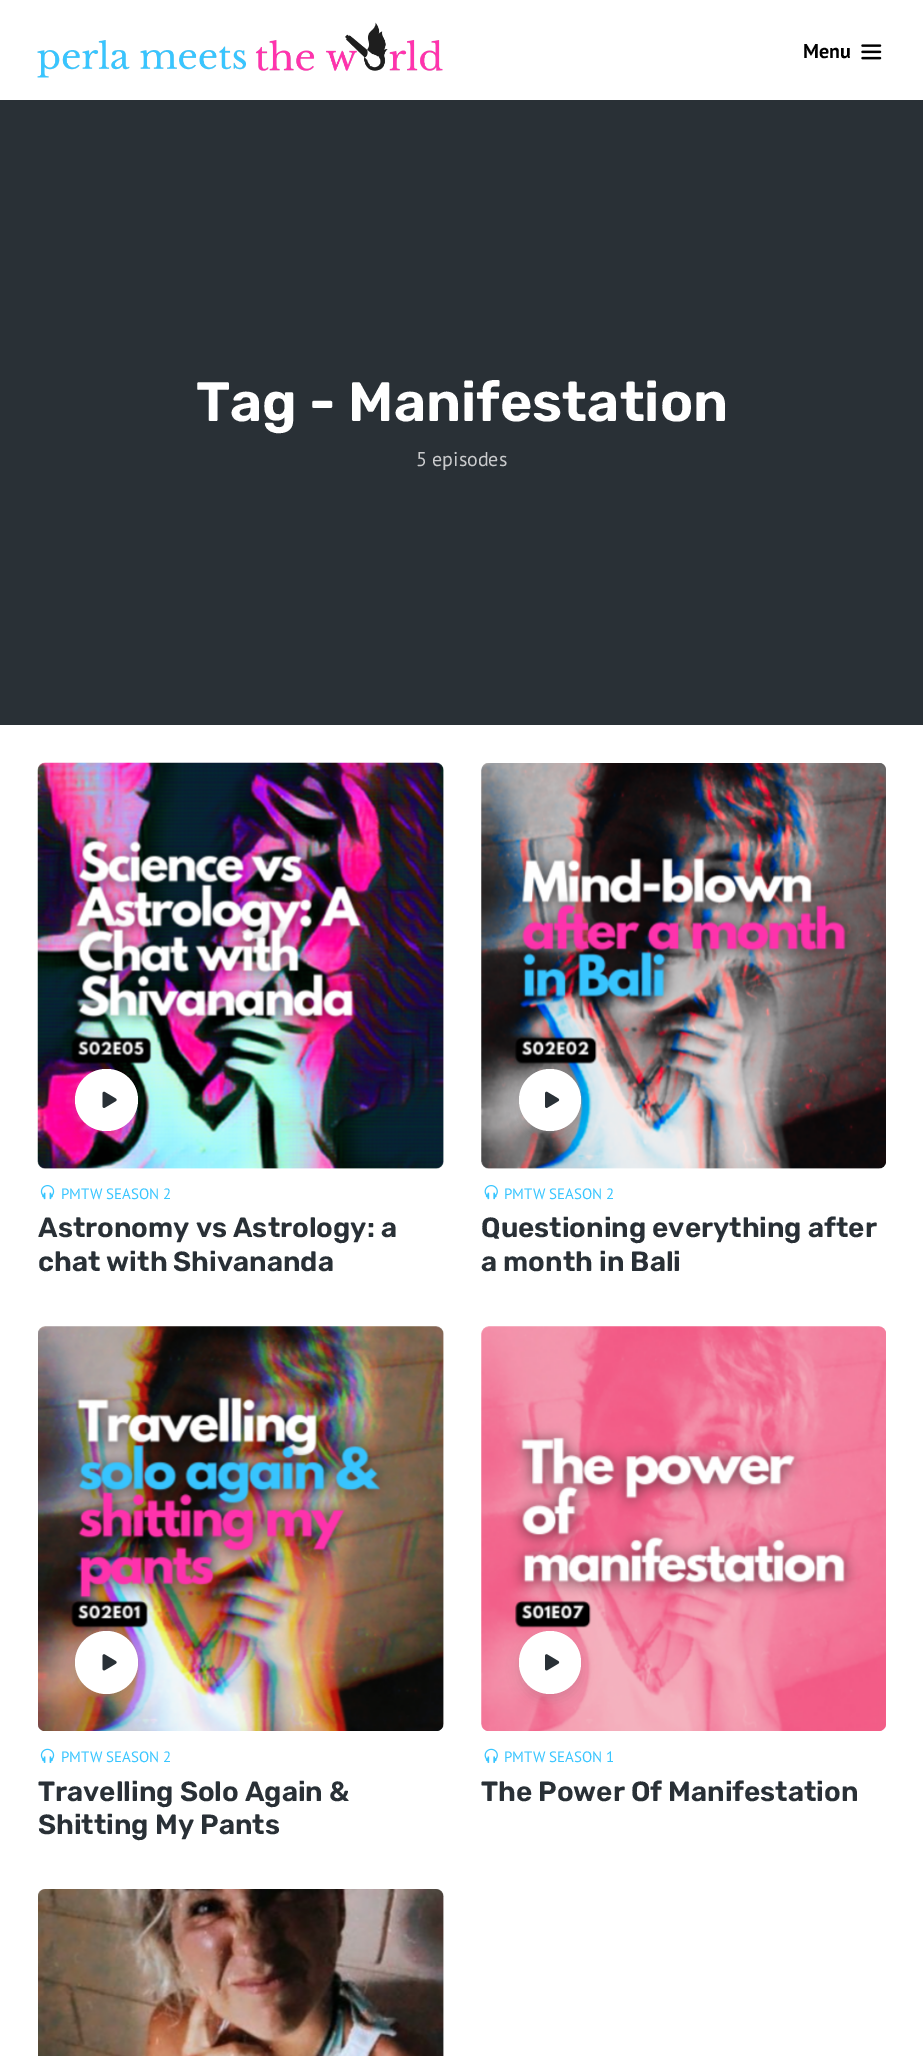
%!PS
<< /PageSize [923 2056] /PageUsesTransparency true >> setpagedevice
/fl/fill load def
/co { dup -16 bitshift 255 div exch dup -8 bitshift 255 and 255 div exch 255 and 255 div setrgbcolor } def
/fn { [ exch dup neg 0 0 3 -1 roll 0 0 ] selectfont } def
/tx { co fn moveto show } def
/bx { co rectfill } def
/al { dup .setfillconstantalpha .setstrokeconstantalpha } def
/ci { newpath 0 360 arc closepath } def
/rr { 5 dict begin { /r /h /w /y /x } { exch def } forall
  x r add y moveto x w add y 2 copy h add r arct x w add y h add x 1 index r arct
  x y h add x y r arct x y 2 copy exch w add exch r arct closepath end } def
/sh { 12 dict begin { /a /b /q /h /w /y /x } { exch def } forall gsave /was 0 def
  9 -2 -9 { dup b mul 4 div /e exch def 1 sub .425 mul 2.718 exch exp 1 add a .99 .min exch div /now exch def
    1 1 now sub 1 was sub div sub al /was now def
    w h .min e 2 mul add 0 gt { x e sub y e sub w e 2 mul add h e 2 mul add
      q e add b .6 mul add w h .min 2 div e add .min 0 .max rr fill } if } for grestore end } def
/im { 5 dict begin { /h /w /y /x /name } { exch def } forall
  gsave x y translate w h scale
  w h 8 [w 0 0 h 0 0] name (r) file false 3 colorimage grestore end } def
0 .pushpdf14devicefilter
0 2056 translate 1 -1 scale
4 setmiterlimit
0 0 923 2056 16#FFFFFF bx
(media/1.raw) 37 22 406 56 im
(media/2.raw) 861 44 21 16 im
0 100 923 625 16#293036 bx
(media/3.raw) 37 762 407 407 im
16#000000 co
75 1075 63 63 31.5 6 .1 sh
16#FFFFFF co
75 1069 63 62 31 rr fl
(media/4.raw) 102 1091 15 17 im
(media/5.raw) 40 1185 15 15 im
(media/6.raw) 481 763 405 406 im
16#000000 co
519 1075 62 63 31 6 .1 sh
16#FFFFFF co
550 1100 31 ci fl
(media/7.raw) 545 1091 15 17 im
(media/8.raw) 484 1185 14 15 im
(media/9.raw) 38 1326 406 405 im
16#000000 co
75 1638 63 62 31 6 .1 sh
16#FFFFFF co
106.5 1662.5 31.5 ci fl
(media/10.raw) 102 1654 15 17 im
(media/11.raw) 40 1748 15 15 im
(media/12.raw) 481 1326 405 405 im
16#000000 co
519 1638 62 62 31 6 .1 sh
16#FFFFFF co
519 1631 62 63 31 rr fl
(media/13.raw) 545 1654 15 17 im
(media/14.raw) 484 1748 14 15 im
(media/15.raw) 38 1889 406 167 im
(Menu) 803 58 /PTSans-Bold 20 16#000000 tx
(Tag - Manifestation) 196 421 /Rubik-SemiBold 55.5 16#FFFFFF tx
(5 episodes) 416 466 /PTSans-Regular 20 16#CACBCD tx
(PMTW SEASON 2) 61 1199 /PTSans-Regular 15 16#38C5FF tx
(Astronomy vs Astrology: a) 38 1237 /Rubik-SemiBold 27.75 16#293036 tx
(chat with Shivananda) 38 1271 /Rubik-SemiBold 27.75 16#293036 tx
(PMTW SEASON 2) 504 1199 /PTSans-Regular 15 16#38C5FF tx
(Questioning everything after) 481 1237 /Rubik-SemiBold 27.75 16#293036 tx
(a month in Bali) 481 1271 /Rubik-SemiBold 27.75 16#293036 tx
(PMTW SEASON 2) 61 1762 /PTSans-Regular 15 16#38C5FF tx
(Travelling Solo Again &) 38 1801 /Rubik-SemiBold 27.75 16#293036 tx
(Shitting My Pants) 38 1834 /Rubik-SemiBold 27.75 16#293036 tx
(PMTW SEASON 1) 504 1762 /PTSans-Regular 15 16#38C5FF tx
(The Power Of Manifestation) 481 1801 /Rubik-SemiBold 27.75 16#293036 tx
.poppdf14devicefilter showpage
